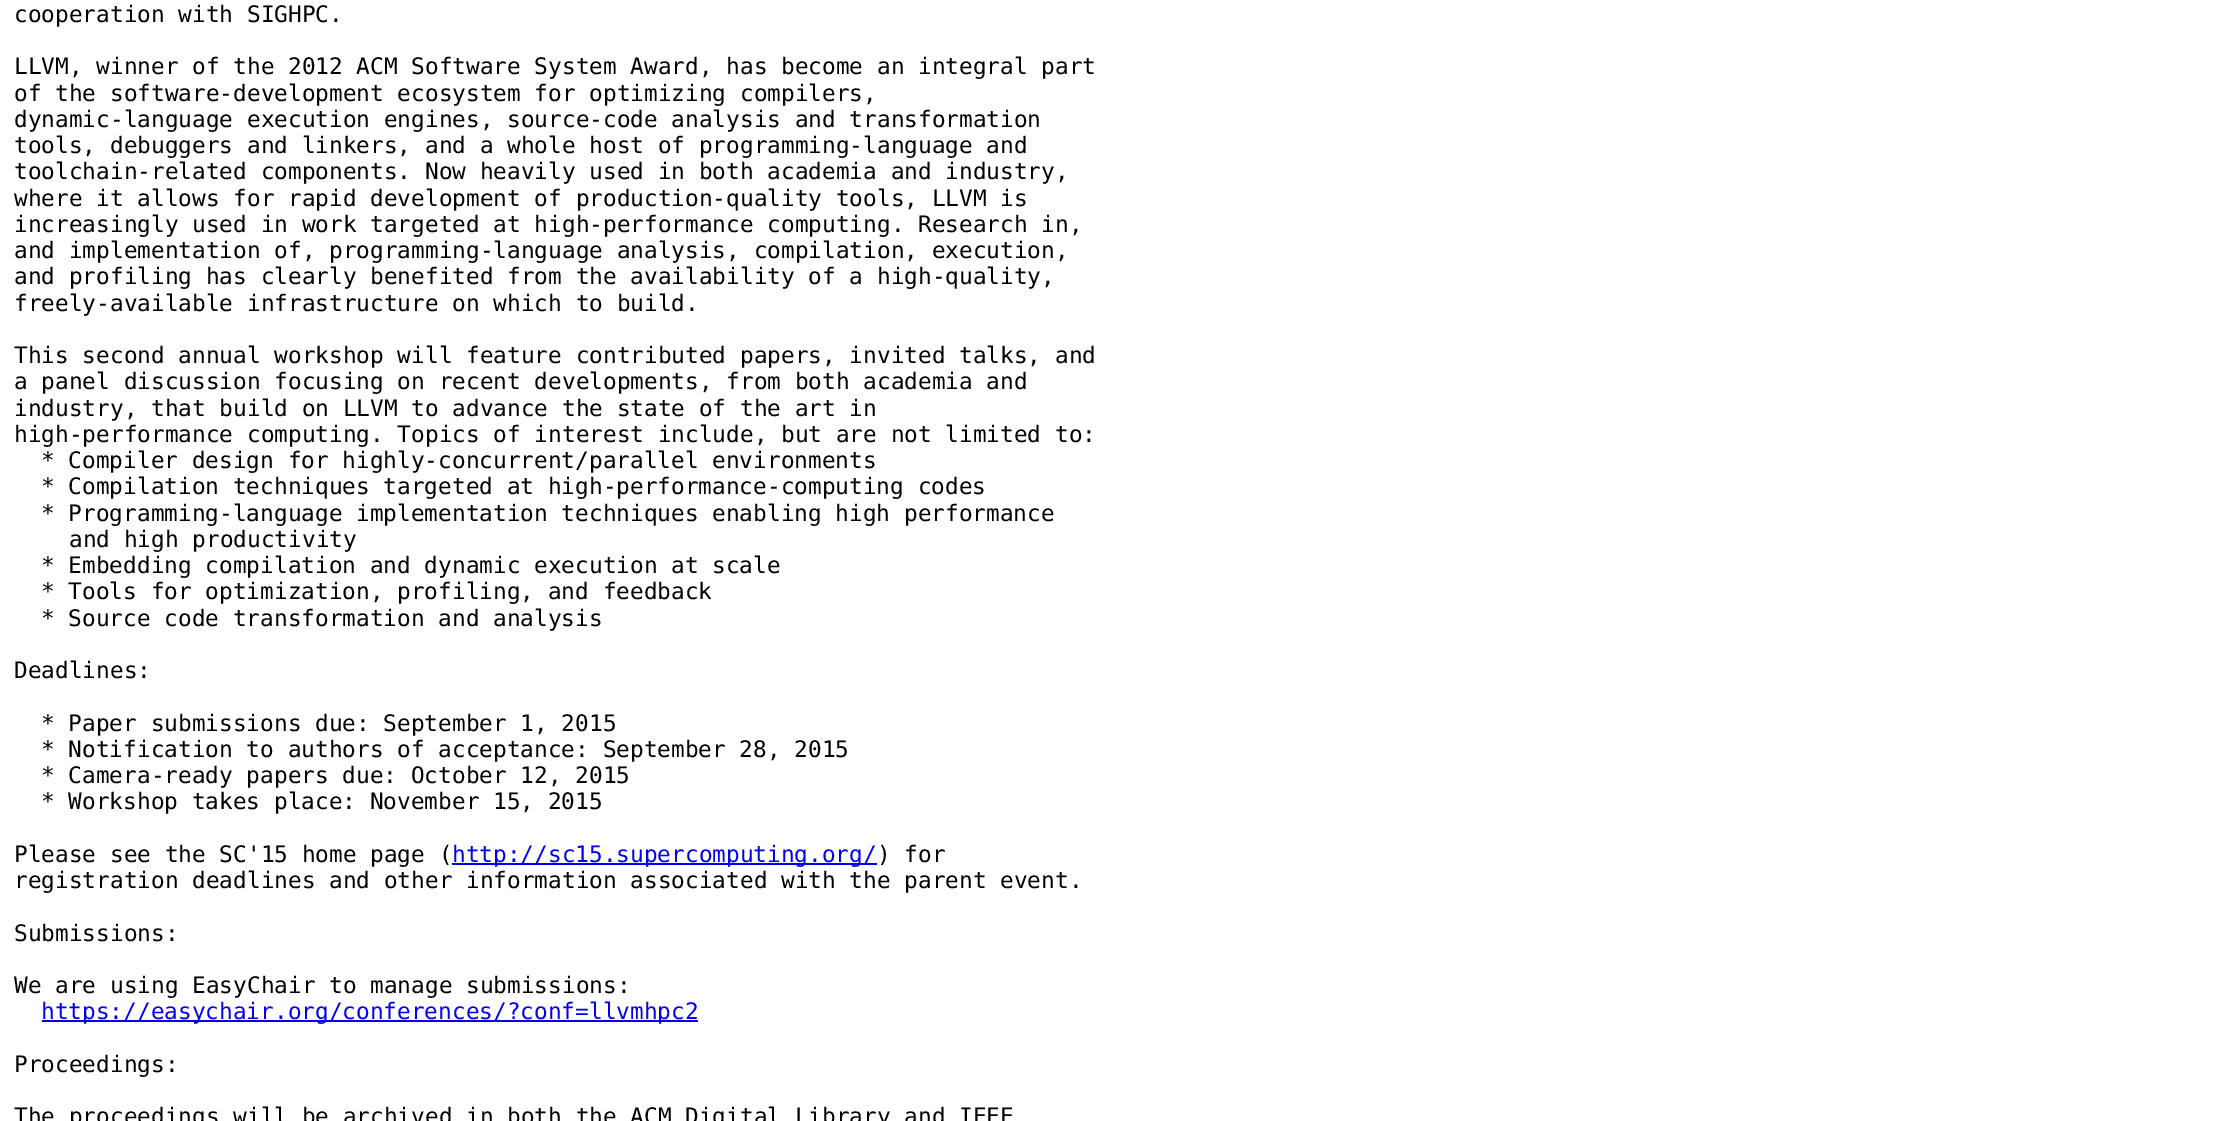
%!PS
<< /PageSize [2238 1121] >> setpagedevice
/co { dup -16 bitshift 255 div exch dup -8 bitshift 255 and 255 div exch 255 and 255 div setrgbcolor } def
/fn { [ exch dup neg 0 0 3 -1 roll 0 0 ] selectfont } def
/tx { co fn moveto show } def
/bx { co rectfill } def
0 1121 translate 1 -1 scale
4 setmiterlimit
0 0 2238 1121 16#FFFFFF bx
452 863 425 2 16#0000EE bx
42 1020 656 2 16#0000EE bx
(cooperation with SIGHPC.) 14 22 /DejaVuSansMono-Regular 22.75 16#000000 tx
(LLVM, winner of the 2012 ACM Software System Award, has become an integral part) 14 74 /DejaVuSansMono-Regular 22.75 16#000000 tx
(of the software-development ecosystem for optimizing compilers,) 14 101 /DejaVuSansMono-Regular 22.75 16#000000 tx
(dynamic-language execution engines, source-code analysis and transformation) 14 127 /DejaVuSansMono-Regular 22.75 16#000000 tx
(tools, debuggers and linkers, and a whole host of programming-language and) 14 153 /DejaVuSansMono-Regular 22.75 16#000000 tx
(toolchain-related components. Now heavily used in both academia and industry,) 14 179 /DejaVuSansMono-Regular 22.75 16#000000 tx
(where it allows for rapid development of production-quality tools, LLVM is) 14 206 /DejaVuSansMono-Regular 22.75 16#000000 tx
(increasingly used in work targeted at high-performance computing. Research in,) 14 232 /DejaVuSansMono-Regular 22.75 16#000000 tx
(and implementation of, programming-language analysis, compilation, execution,) 14 258 /DejaVuSansMono-Regular 22.75 16#000000 tx
(and profiling has clearly benefited from the availability of a high-quality,) 14 284 /DejaVuSansMono-Regular 22.75 16#000000 tx
(freely-available infrastructure on which to build.) 14 311 /DejaVuSansMono-Regular 22.75 16#000000 tx
(This second annual workshop will feature contributed papers, invited talks, and) 14 363 /DejaVuSansMono-Regular 22.75 16#000000 tx
(a panel discussion focusing on recent developments, from both academia and) 14 389 /DejaVuSansMono-Regular 22.75 16#000000 tx
(industry, that build on LLVM to advance the state of the art in) 14 416 /DejaVuSansMono-Regular 22.75 16#000000 tx
(high-performance computing. Topics of interest include, but are not limited to:) 14 442 /DejaVuSansMono-Regular 22.75 16#000000 tx
(* Compiler design for highly-concurrent/parallel environments) 41 468 /DejaVuSansMono-Regular 22.75 16#000000 tx
(* Compilation techniques targeted at high-performance-computing codes) 41 494 /DejaVuSansMono-Regular 22.75 16#000000 tx
(* Programming-language implementation techniques enabling high performance) 41 521 /DejaVuSansMono-Regular 22.75 16#000000 tx
(and high productivity) 69 547 /DejaVuSansMono-Regular 22.75 16#000000 tx
(* Embedding compilation and dynamic execution at scale) 41 573 /DejaVuSansMono-Regular 22.75 16#000000 tx
(* Tools for optimization, profiling, and feedback) 41 599 /DejaVuSansMono-Regular 22.75 16#000000 tx
(* Source code transformation and analysis) 41 626 /DejaVuSansMono-Regular 22.75 16#000000 tx
(Deadlines:) 14 678 /DejaVuSansMono-Regular 22.75 16#000000 tx
(* Paper submissions due: September 1, 2015) 41 731 /DejaVuSansMono-Regular 22.75 16#000000 tx
(* Notification to authors of acceptance: September 28, 2015) 41 757 /DejaVuSansMono-Regular 22.75 16#000000 tx
(* Camera-ready papers due: October 12, 2015) 41 783 /DejaVuSansMono-Regular 22.75 16#000000 tx
(* Workshop takes place: November 15, 2015) 41 809 /DejaVuSansMono-Regular 22.75 16#000000 tx
(Please see the SC'15 home page \() 14 862 /DejaVuSansMono-Regular 22.75 16#000000 tx
(http://sc15.supercomputing.org/) 452 862 /DejaVuSansMono-Regular 22.75 16#0000EE tx
(\) for) 877 862 /DejaVuSansMono-Regular 22.75 16#000000 tx
(registration deadlines and other information associated with the parent event.) 14 888 /DejaVuSansMono-Regular 22.75 16#000000 tx
(Submissions:) 14 941 /DejaVuSansMono-Regular 22.75 16#000000 tx
(We are using EasyChair to manage submissions:) 14 993 /DejaVuSansMono-Regular 22.75 16#000000 tx
(https://easychair.org/conferences/?conf=llvmhpc2) 41 1019 /DejaVuSansMono-Regular 22.75 16#0000EE tx
(Proceedings:) 14 1072 /DejaVuSansMono-Regular 22.75 16#000000 tx
(The proceedings will be archived in both the ACM Digital Library and IEEE) 14 1124 /DejaVuSansMono-Regular 22.75 16#000000 tx
showpage
